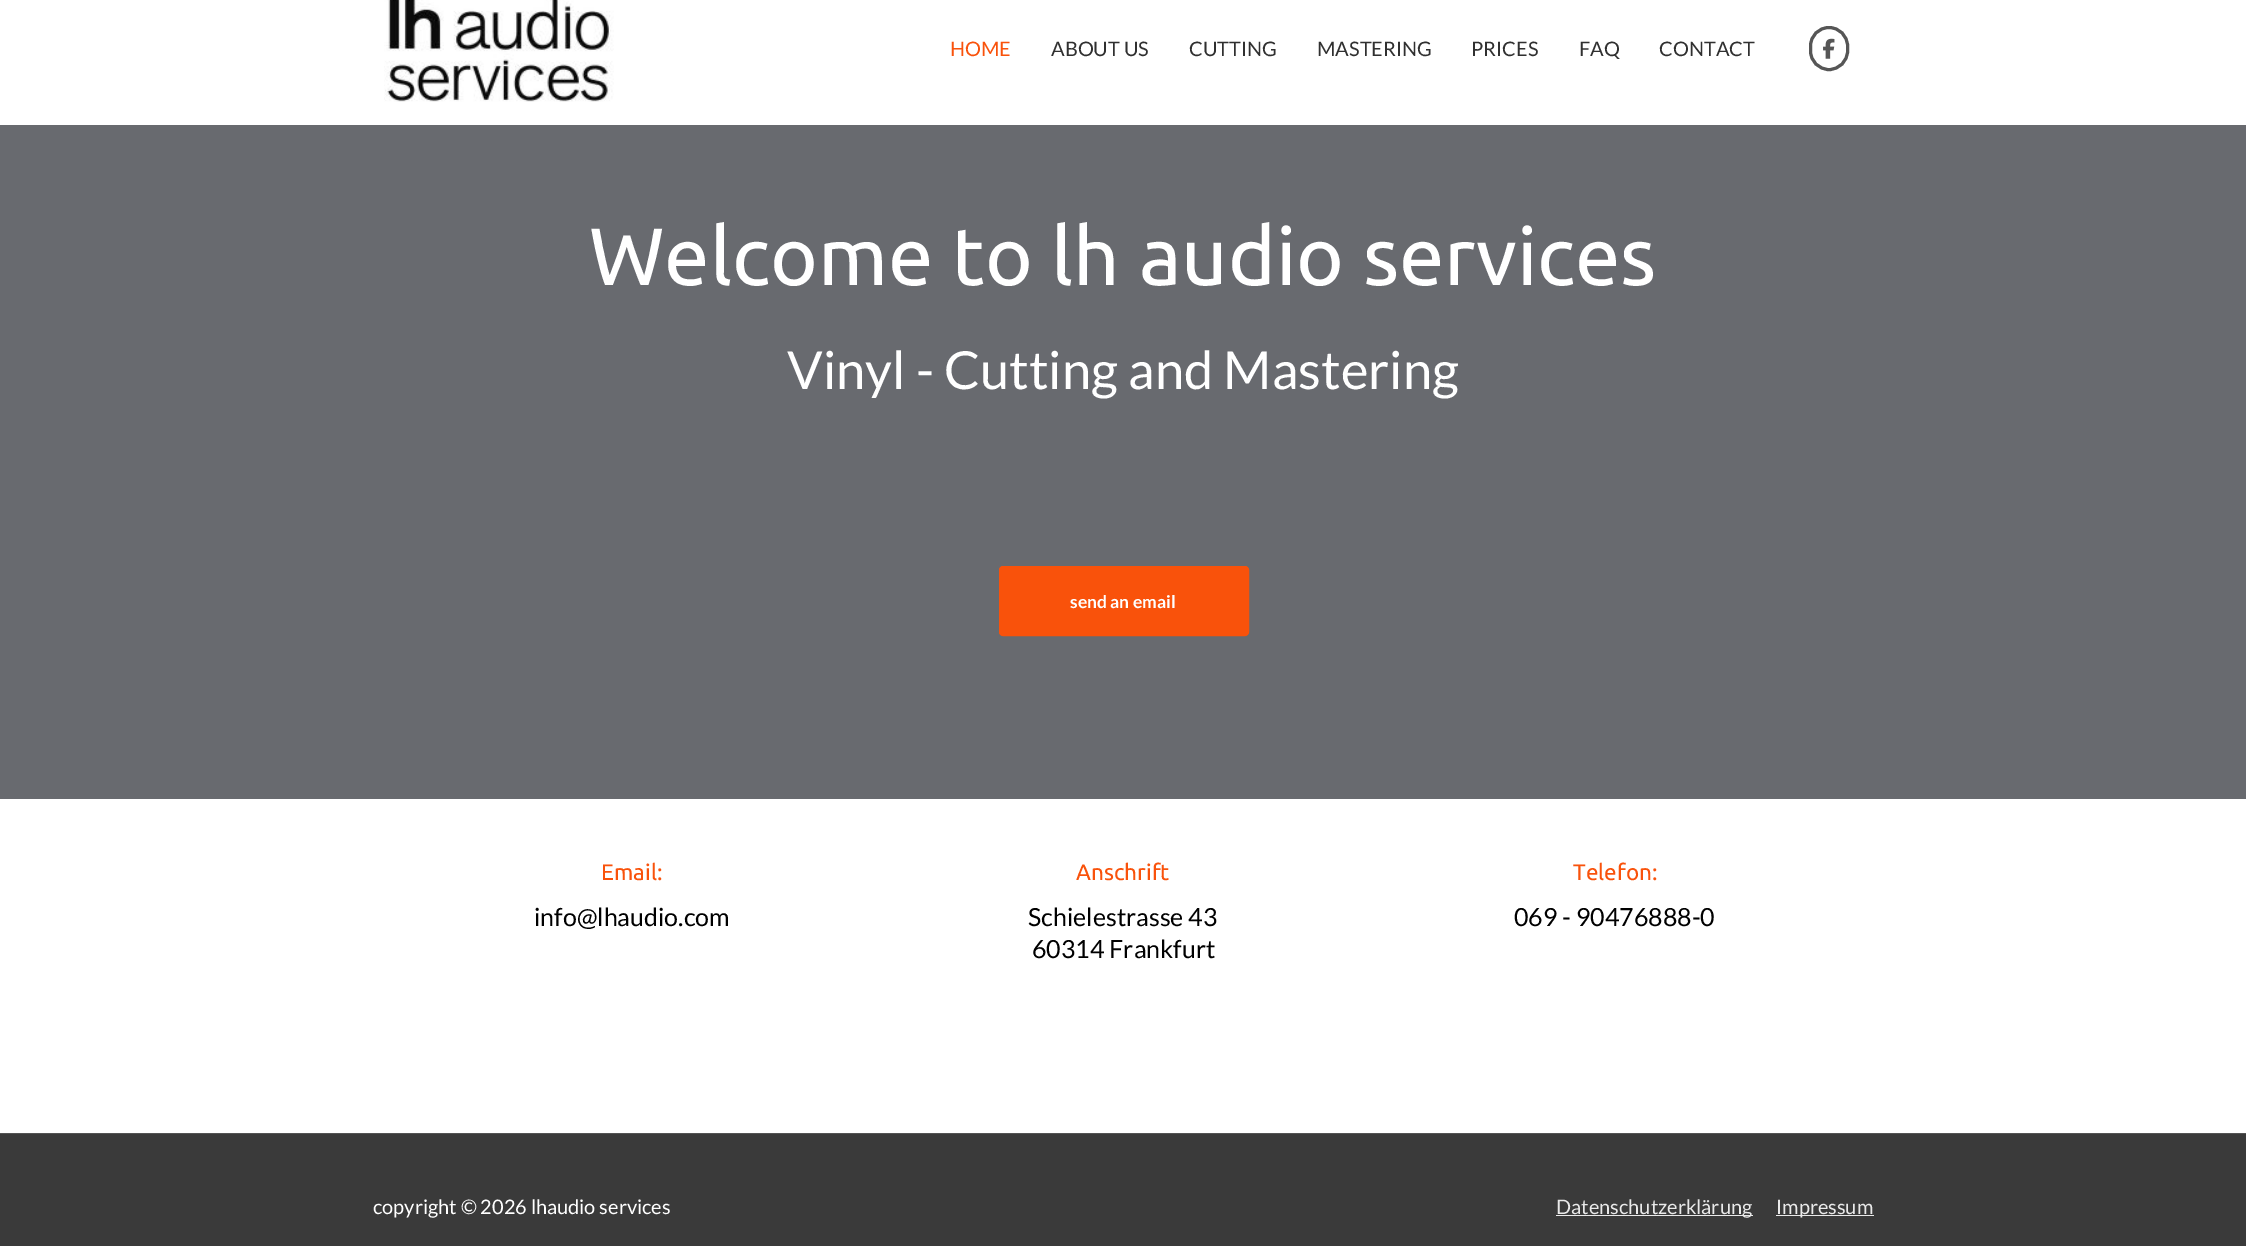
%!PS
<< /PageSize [2246 1246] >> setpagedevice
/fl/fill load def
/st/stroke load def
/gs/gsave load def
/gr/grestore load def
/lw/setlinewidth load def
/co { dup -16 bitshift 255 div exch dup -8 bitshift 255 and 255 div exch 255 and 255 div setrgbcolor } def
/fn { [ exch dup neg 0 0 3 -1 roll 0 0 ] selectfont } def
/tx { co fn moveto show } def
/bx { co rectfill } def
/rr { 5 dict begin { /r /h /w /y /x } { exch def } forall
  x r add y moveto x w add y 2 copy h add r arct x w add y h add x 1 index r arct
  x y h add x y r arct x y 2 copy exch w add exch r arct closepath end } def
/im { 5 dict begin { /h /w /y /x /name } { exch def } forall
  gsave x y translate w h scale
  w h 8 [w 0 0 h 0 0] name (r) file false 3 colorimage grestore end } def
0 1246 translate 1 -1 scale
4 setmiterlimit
0 0 2246 1246 16#FFFFFF bx
(media/1.raw) 384 0 230 102 im
16#565656 co
3 lw
1810.5 27.5 37 42 18.5 rr st
(media/2.raw) 1823 38 12 21 im
0 125 2246 674 16#686A6F bx
16#F9520B co
999.5 566.5 249 69 3.5 rr gs fl gr
1 lw
st
0 1133 2246 1 16#545454 bx
0 1134 2246 112 16#3A3A3A bx
1556 1215 197 1 16#EAEAEA bx
1776 1215 98 1 16#EAEAEA bx
(HOME) 950 56 /Lato-Regular 20 16#F9520B tx
(ABOUT US) 1051 56 /Lato-Regular 20 16#303030 tx
(CUTTING) 1189 56 /Lato-Regular 20 16#303030 tx
(MASTERING) 1317 56 /Lato-Regular 20 16#303030 tx
(PRICES) 1471 56 /Lato-Regular 20 16#303030 tx
(FAQ) 1579 56 /Lato-Regular 20 16#303030 tx
(CONTACT) 1659 56 /Lato-Regular 20 16#303030 tx
(Welcome to lh audio services) 589 285 /Ubuntu-Regular 81.25 16#FFFFFF tx
(Vinyl - Cutting and Mastering) 787 389 /Lato-Regular 52.5 16#FFFFFF tx
(send an email) 1070 608 /Lato-Bold 17.5 16#FFFFFF tx
(Email:) 601 880 /Ubuntu-Regular 22.5 16#F9520B tx
(info@lhaudio.com) 534 926 /Lato-Regular 25 16#000000 tx
(Anschrift) 1076 880 /Ubuntu-Regular 22.5 16#F9520B tx
(Schielestrasse 43) 1028 926 /Lato-Regular 25 16#000000 tx
(60314 Frankfurt) 1032 958 /Lato-Regular 25 16#000000 tx
(Telefon:) 1573 880 /Ubuntu-Regular 22.5 16#F9520B tx
(069 - 90476888-0) 1514 926 /Lato-Regular 25 16#000000 tx
(copyright © 2026 lhaudio services) 373 1214 /Lato-Regular 20 16#FFFFFF tx
(Datenschutzerklärung) 1556 1214 /Lato-Regular 20 16#EAEAEA tx
(Impressum) 1776 1214 /Lato-Regular 20 16#EAEAEA tx
showpage
